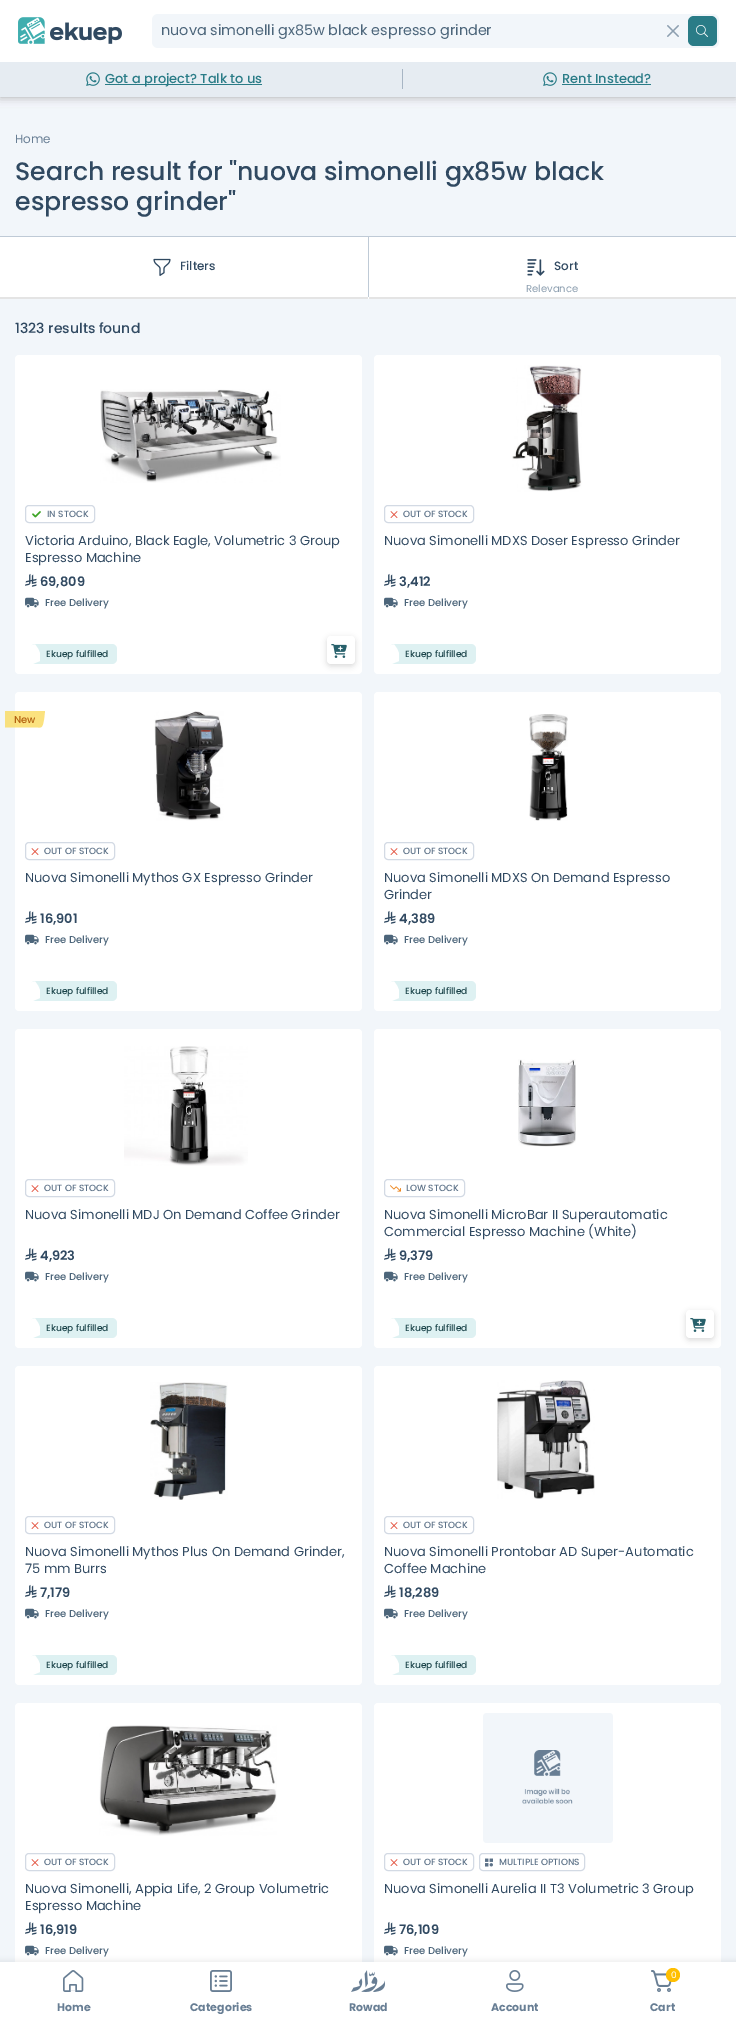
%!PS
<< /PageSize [736 2022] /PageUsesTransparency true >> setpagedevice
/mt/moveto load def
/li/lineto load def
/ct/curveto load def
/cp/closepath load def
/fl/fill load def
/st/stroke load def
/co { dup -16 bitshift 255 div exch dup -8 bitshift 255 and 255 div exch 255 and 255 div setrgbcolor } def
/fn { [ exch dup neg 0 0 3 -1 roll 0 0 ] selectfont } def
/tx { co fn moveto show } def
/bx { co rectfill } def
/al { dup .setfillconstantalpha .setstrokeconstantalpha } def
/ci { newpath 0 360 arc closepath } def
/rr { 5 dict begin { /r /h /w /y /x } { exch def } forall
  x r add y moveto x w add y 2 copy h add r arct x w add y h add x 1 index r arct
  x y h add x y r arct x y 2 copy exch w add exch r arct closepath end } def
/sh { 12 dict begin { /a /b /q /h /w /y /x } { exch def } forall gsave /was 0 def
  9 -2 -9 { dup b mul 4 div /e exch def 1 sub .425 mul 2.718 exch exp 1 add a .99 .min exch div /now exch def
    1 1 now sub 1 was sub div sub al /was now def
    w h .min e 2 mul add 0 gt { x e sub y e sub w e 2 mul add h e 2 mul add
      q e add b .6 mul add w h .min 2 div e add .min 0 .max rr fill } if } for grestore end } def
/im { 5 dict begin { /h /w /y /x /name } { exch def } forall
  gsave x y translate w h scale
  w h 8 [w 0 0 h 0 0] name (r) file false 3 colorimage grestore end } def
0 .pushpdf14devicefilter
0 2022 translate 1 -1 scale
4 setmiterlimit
0 0 736 2022 16#F4F7FD bx
0 107 736 129 16#F2F6FA bx
16#A7A7A7 co
0 0 736 97 0 5 1 sh
0 0 736 62 16#FFFFFF bx
(media/1.raw) 18 17 104 27 im
16#F2F6FA co
152 14 567 34 6 rr fl
(media/2.raw) 667 25 12 12 im
16#2A7C87 co
688 16 29 30 6 rr fl
(media/3.raw) 696 25 12 12 im
0 62 736 35 16#E6ECF2 bx
(media/4.raw) 86 72 14 14 im
105 84 157 1 16#2A7C87 bx
402 69 1 20 16#A7B5C4 bx
(media/4.raw) 543 72 14 14 im
562 84 89 1 16#2A7C87 bx
0 299 736 1663 16#F2F6FA bx
16#FFFFFF co
15 1703 347 319 4 rr fl
(media/15.raw) 25 1945 14 11 im
374 1703 347 319 4 rr fl
(media/15.raw) 384 1945 14 11 im
16#A7A7A7 co
-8 1960 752 60 0 2.5 .19 sh
0 1962 736 60 16#FFFFFF bx
(media/5.raw) 63 1970 21 22 im
(media/6.raw) 210 1970 22 22 im
(media/7.raw) 351 1970 34 22 im
(media/8.raw) 506 1970 18 22 im
(media/9.raw) 651 1970 21 22 im
16#FFBF02 co
673 1975 7 ci fl
0 237 736 62 16#FFFFFF bx
0 236 736 1 16#BFCAD6 bx
368 237 1 60 16#BFCAD6 bx
0 297 368 2 16#E4E4E4 bx
(media/10.raw) 153 258 18 18 im
369 297 367 2 16#E4E4E4 bx
(media/11.raw) 527 259 18 17 im
16#FFFFFF co
15 355 347 319 4 rr fl
(media/12.raw) 100 389 181 94 im
16#D3DAE4 co
25.5 505.5 69 17 3.5 rr st
(media/13.raw) 32 511 9 7 im
(media/14.raw) 25 573 12 14 im
(media/15.raw) 25 597 14 11 im
16#DEF1F2 co
30 644 87 20 5 rr fl
(media/16.raw) 30 644 10 20 im
16#000000 co
327 638 28 28 4 3 .15 sh
16#FFFFFF co
327 636 28 28 4 rr fl
(media/17.raw) 331 644 16 14 im
374 355 347 319 4 rr fl
(media/18.raw) 512 365 70 127 im
16#D3DAE4 co
384.5 505.5 89 17 3.5 rr st
(media/19.raw) 390 511 8 7 im
(media/14.raw) 384 573 12 14 im
(media/15.raw) 384 597 14 11 im
16#DEF1F2 co
389 644 87 20 5 rr fl
(media/16.raw) 389 644 10 20 im
16#FFFFFF co
15 692 347 319 4 rr fl
0.8 al
16#FADB5F co
5 711 mt 45 711 li 44.5 715.5 li 43 728.5 41.5 727.5 38 727.5 ct 5 727.5 li cp fl
1 al
(media/20.raw) 154 711 70 110 im
16#D3DAE4 co
25.5 842.5 89 17 3.5 rr st
(media/19.raw) 31 848 8 7 im
(media/14.raw) 25 910 12 14 im
(media/15.raw) 25 934 14 11 im
16#DEF1F2 co
30 981 87 20 5 rr fl
(media/16.raw) 30 981 10 20 im
16#FFFFFF co
374 692 347 319 4 rr fl
(media/21.raw) 529 714 39 107 im
16#D3DAE4 co
384.5 842.5 89 17 3.5 rr st
(media/19.raw) 390 848 8 7 im
(media/14.raw) 384 910 12 14 im
(media/15.raw) 384 934 14 11 im
16#DEF1F2 co
389 981 87 20 5 rr fl
(media/16.raw) 389 981 10 20 im
16#FFFFFF co
15 1029 347 319 4 rr fl
(media/22.raw) 124 1046 124 120 im
16#D3DAE4 co
25.5 1179.5 89 17 3.5 rr st
(media/19.raw) 31 1185 8 7 im
(media/14.raw) 25 1247 12 14 im
(media/15.raw) 25 1271 14 11 im
16#DEF1F2 co
30 1318 87 20 5 rr fl
(media/16.raw) 30 1318 10 20 im
16#FFFFFF co
374 1029 347 319 4 rr fl
(media/23.raw) 518 1059 58 88 im
16#D3DAE4 co
384.5 1179.5 80 17 3.5 rr st
(media/24.raw) 390 1185 11 7 im
(media/14.raw) 384 1247 12 14 im
(media/15.raw) 384 1271 14 11 im
16#DEF1F2 co
389 1318 87 20 5 rr fl
(media/16.raw) 389 1318 10 20 im
16#000000 co
686 1312 28 28 4 3 .15 sh
16#FFFFFF co
686 1310 28 28 4 rr fl
(media/17.raw) 690 1318 16 14 im
15 1366 347 319 4 rr fl
(media/25.raw) 150 1382 78 118 im
16#D3DAE4 co
25.5 1516.5 89 17 3.5 rr st
(media/19.raw) 31 1522 8 7 im
(media/14.raw) 25 1584 12 14 im
(media/15.raw) 25 1608 14 11 im
16#DEF1F2 co
30 1655 87 20 5 rr fl
(media/16.raw) 30 1655 10 20 im
16#FFFFFF co
374 1366 347 319 4 rr fl
(media/26.raw) 497 1380 98 119 im
16#D3DAE4 co
384.5 1516.5 89 17 3.5 rr st
(media/19.raw) 390 1522 8 7 im
(media/14.raw) 384 1584 12 14 im
(media/15.raw) 384 1608 14 11 im
16#DEF1F2 co
389 1655 87 20 5 rr fl
(media/16.raw) 389 1655 10 20 im
(media/27.raw) 99 1725 178 111 im
16#D3DAE4 co
25.5 1853.5 89 17 3.5 rr st
(media/19.raw) 31 1859 8 7 im
(media/14.raw) 25 1921 12 14 im
(media/28.raw) 483 1713 130 130 im
384.5 1853.5 89 17 3.5 rr st
(media/19.raw) 390 1859 8 7 im
479.5 1853.5 105 17 3.5 rr st
(media/29.raw) 485 1858 8 9 im
(media/14.raw) 384 1921 12 14 im
(nuova simonelli gx85w black espresso grinder) 161 35 /Poppins-Regular 14.4 16#4C657A tx
(Got a project? Talk to us) 105 83 /Poppins-Medium 13 16#2A7C87 tx
(Rent Instead?) 562 83 /Poppins-Medium 13 16#2A7C87 tx
(Home) 57 2011 /Poppins-Bold 11 16#687E94 tx
(Categories) 190 2011 /Poppins-Bold 11 16#687E94 tx
(Rowad) 349 2011 /Poppins-Bold 11 16#687E94 tx
(Account) 491 2011 /Poppins-Bold 11 16#687E94 tx
(0) 671 1978 /Poppins-Regular 9 16#FFFFFF tx
(Cart) 650 2011 /Poppins-Bold 11 16#687E94 tx
(Home) 15 143 /Poppins-Regular 12 16#687E94 tx
(Search result for "nuova simonelli gx85w black) 15 180 /Poppins-Medium 25.2 16#304961 tx
(espresso grinder") 15 210 /Poppins-Medium 25.2 16#304961 tx
(Filters) 180 270 /Poppins-Medium 12 16#304961 tx
(Sort) 554 270 /Poppins-Medium 12 16#304961 tx
(Relevance) 526 292 /Poppins-Regular 10 16#8D9FB0 tx
(1323 results found) 15 333 /Poppins-Medium 14 16#304961 tx
(IN STOCK) 47 517 /Poppins-Medium 9 16#5D7288 tx
(Victoria Arduino, Black Eagle, Volumetric 3 Group) 25 545 /Poppins-Regular 13 16#304961 tx
(Espresso Machine) 25 562 /Poppins-Regular 13 16#304961 tx
(69,809) 40 586 /Poppins-SemiBold 13 16#304961 tx
(Free Delivery) 45 606 /Poppins-Medium 10 16#4C657A tx
(Ekuep fulfilled) 46 657 /Poppins-Medium 9 16#1B444A tx
(OUT OF STOCK) 403 517 /Poppins-Medium 9 16#5D7288 tx
(Nuova Simonelli MDXS Doser Espresso Grinder) 384 545 /Poppins-Regular 13 16#304961 tx
(3,412) 399 586 /Poppins-SemiBold 13 16#304961 tx
(Free Delivery) 404 606 /Poppins-Medium 10 16#4C657A tx
(Ekuep fulfilled) 405 657 /Poppins-Medium 9 16#1B444A tx
(New) 14 723 /Poppins-Medium 10 16#B46312 tx
(OUT OF STOCK) 44 854 /Poppins-Medium 9 16#5D7288 tx
(Nuova Simonelli Mythos GX Espresso Grinder) 25 882 /Poppins-Regular 13 16#304961 tx
(16,901) 40 923 /Poppins-SemiBold 13 16#304961 tx
(Free Delivery) 45 943 /Poppins-Medium 10 16#4C657A tx
(Ekuep fulfilled) 46 994 /Poppins-Medium 9 16#1B444A tx
(OUT OF STOCK) 403 854 /Poppins-Medium 9 16#5D7288 tx
(Nuova Simonelli MDXS On Demand Espresso) 384 882 /Poppins-Regular 13 16#304961 tx
(Grinder) 384 899 /Poppins-Regular 13 16#304961 tx
(4,389) 399 923 /Poppins-SemiBold 13 16#304961 tx
(Free Delivery) 404 943 /Poppins-Medium 10 16#4C657A tx
(Ekuep fulfilled) 405 994 /Poppins-Medium 9 16#1B444A tx
(OUT OF STOCK) 44 1191 /Poppins-Medium 9 16#5D7288 tx
(Nuova Simonelli MDJ On Demand Coffee Grinder) 25 1219 /Poppins-Regular 13 16#304961 tx
(4,923) 40 1260 /Poppins-SemiBold 13 16#304961 tx
(Free Delivery) 45 1280 /Poppins-Medium 10 16#4C657A tx
(Ekuep fulfilled) 46 1331 /Poppins-Medium 9 16#1B444A tx
(LOW STOCK) 406 1191 /Poppins-Medium 9 16#5D7288 tx
(Nuova Simonelli MicroBar II Superautomatic) 384 1219 /Poppins-Regular 13 16#304961 tx
(Commercial Espresso Machine \(White\)) 384 1236 /Poppins-Regular 13 16#304961 tx
(9,379) 399 1260 /Poppins-SemiBold 13 16#304961 tx
(Free Delivery) 404 1280 /Poppins-Medium 10 16#4C657A tx
(Ekuep fulfilled) 405 1331 /Poppins-Medium 9 16#1B444A tx
(OUT OF STOCK) 44 1528 /Poppins-Medium 9 16#5D7288 tx
(Nuova Simonelli Mythos Plus On Demand Grinder,) 25 1556 /Poppins-Regular 13 16#304961 tx
(75 mm Burrs) 25 1573 /Poppins-Regular 13 16#304961 tx
(7,179) 40 1597 /Poppins-SemiBold 13 16#304961 tx
(Free Delivery) 45 1617 /Poppins-Medium 10 16#4C657A tx
(Ekuep fulfilled) 46 1668 /Poppins-Medium 9 16#1B444A tx
(OUT OF STOCK) 403 1528 /Poppins-Medium 9 16#5D7288 tx
(Nuova Simonelli Prontobar AD Super-Automatic) 384 1556 /Poppins-Regular 13 16#304961 tx
(Coffee Machine) 384 1573 /Poppins-Regular 13 16#304961 tx
(18,289) 399 1597 /Poppins-SemiBold 13 16#304961 tx
(Free Delivery) 404 1617 /Poppins-Medium 10 16#4C657A tx
(Ekuep fulfilled) 405 1668 /Poppins-Medium 9 16#1B444A tx
(OUT OF STOCK) 44 1865 /Poppins-Medium 9 16#5D7288 tx
(Nuova Simonelli, Appia Life, 2 Group Volumetric) 25 1893 /Poppins-Regular 13 16#304961 tx
(Espresso Machine) 25 1910 /Poppins-Regular 13 16#304961 tx
(16,919) 40 1934 /Poppins-SemiBold 13 16#304961 tx
(Free Delivery) 45 1954 /Poppins-Medium 10 16#4C657A tx
(OUT OF STOCK) 403 1865 /Poppins-Medium 9 16#5D7288 tx
(MULTIPLE OPTIONS) 499 1865 /Poppins-Medium 9 16#5D7288 tx
(Nuova Simonelli Aurelia II T3 Volumetric 3 Group) 384 1893 /Poppins-Regular 13 16#304961 tx
(76,109) 399 1934 /Poppins-SemiBold 13 16#304961 tx
(Free Delivery) 404 1954 /Poppins-Medium 10 16#4C657A tx
.poppdf14devicefilter showpage
